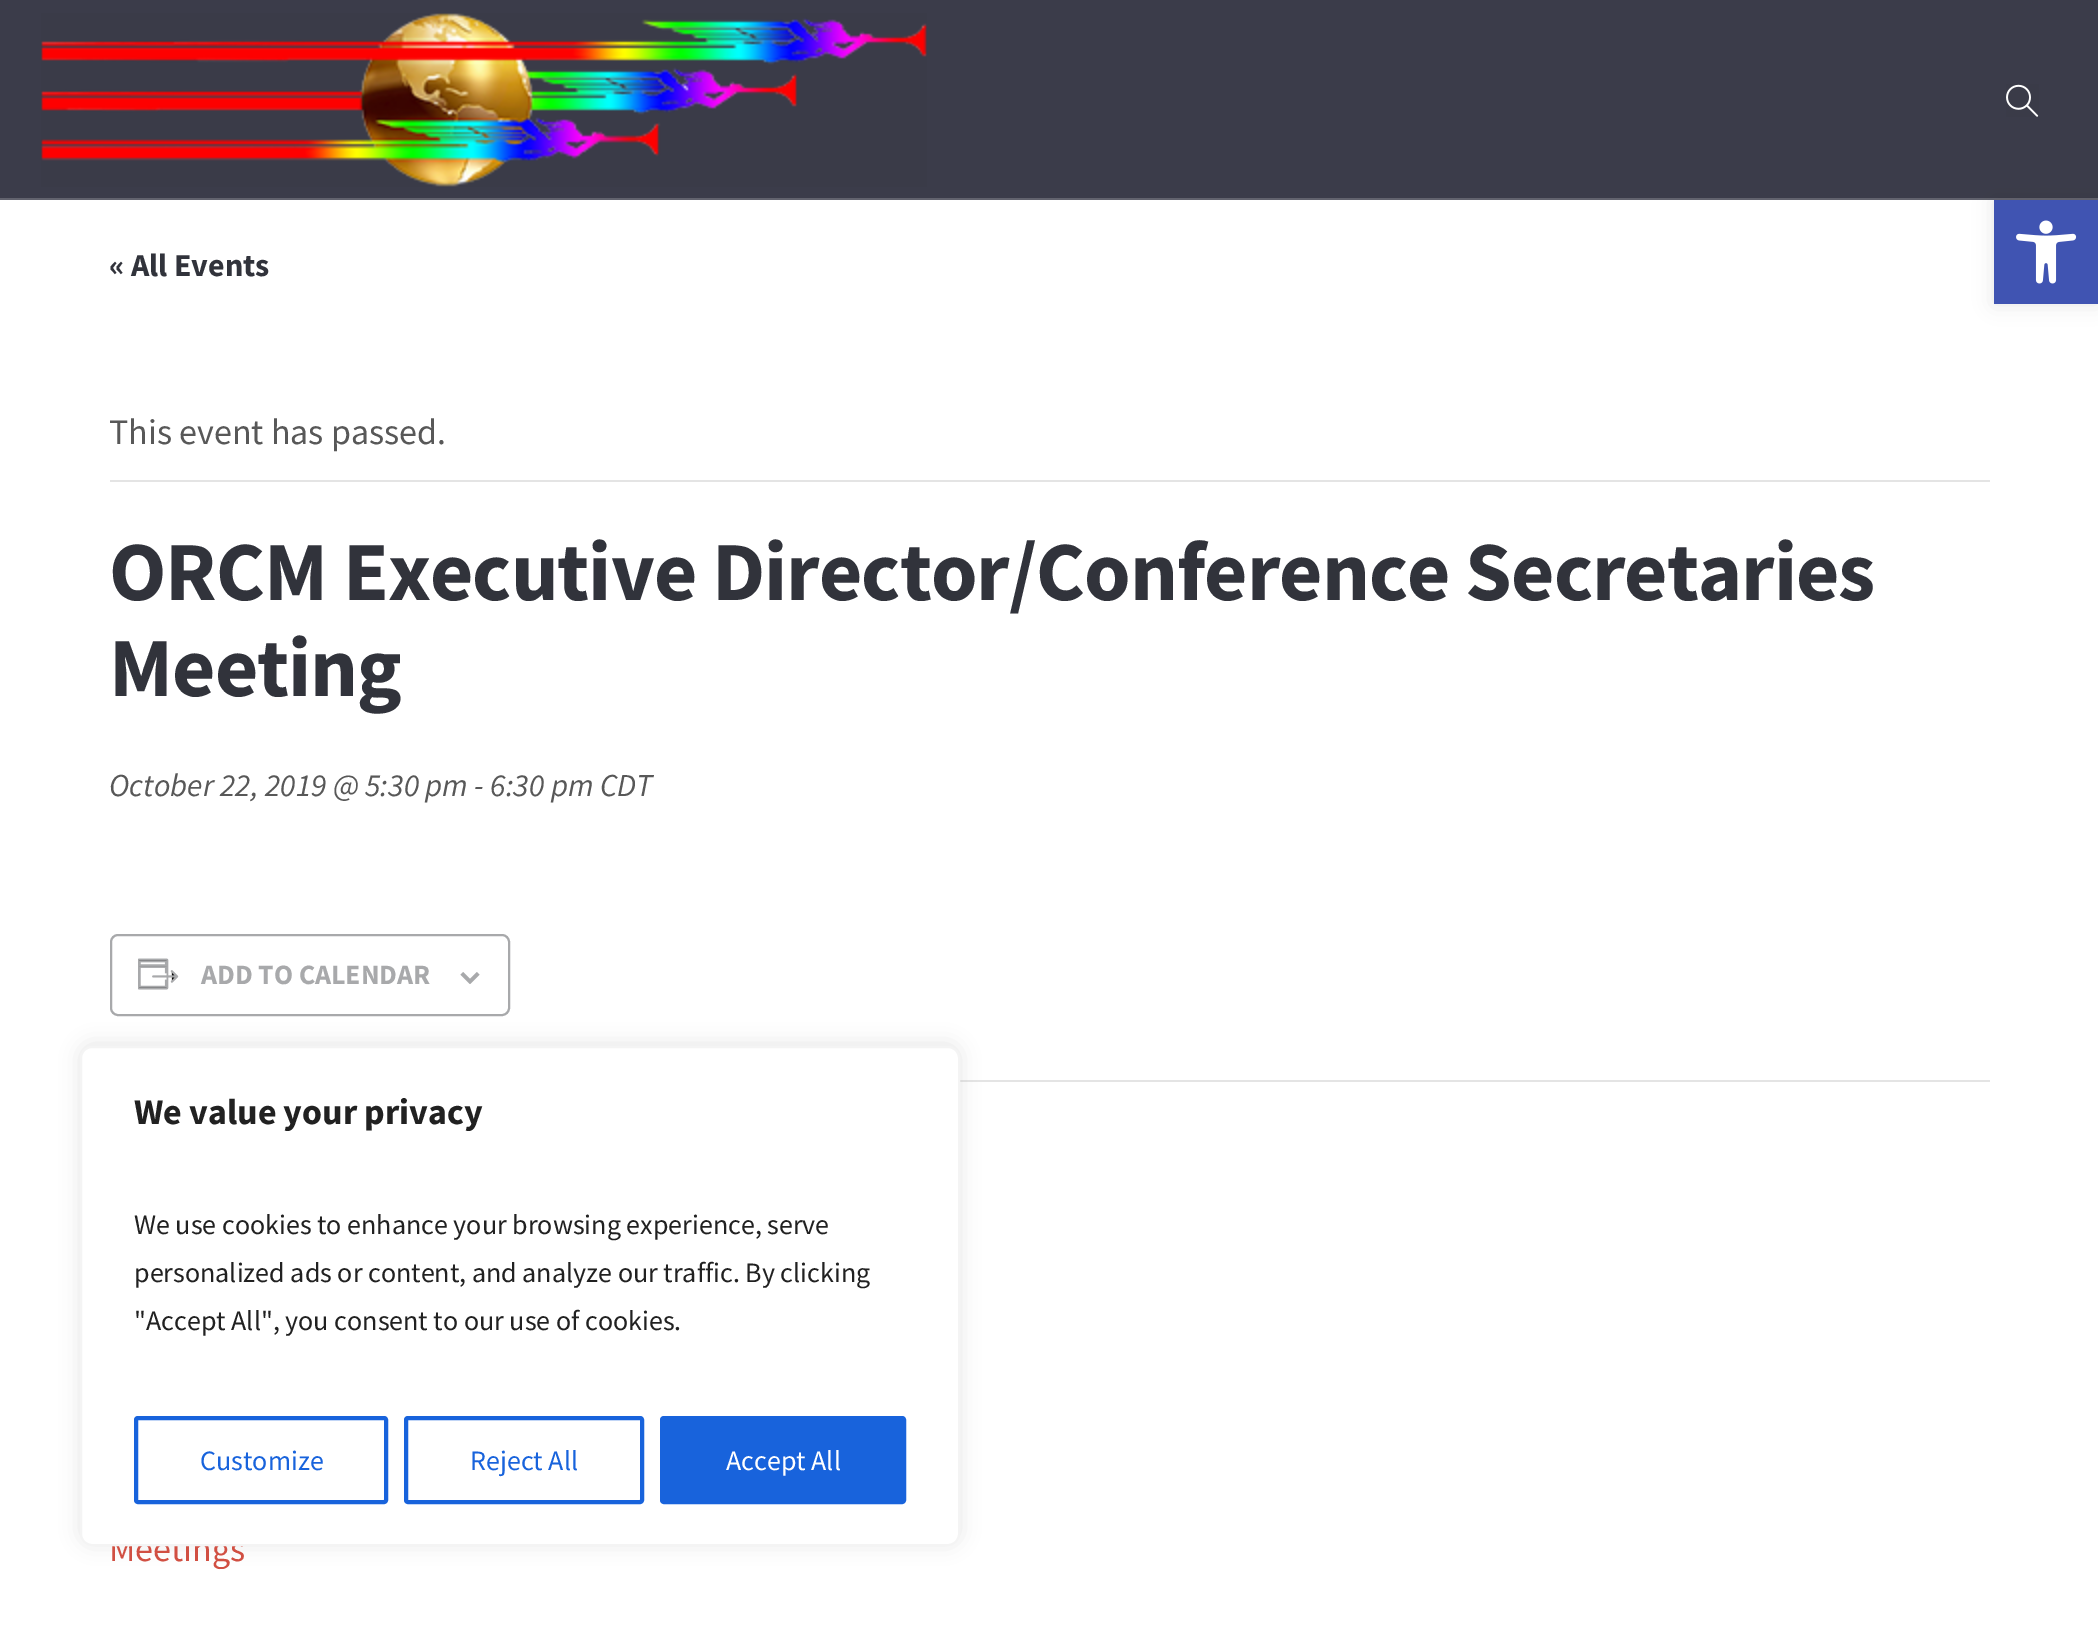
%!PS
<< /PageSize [2098 1625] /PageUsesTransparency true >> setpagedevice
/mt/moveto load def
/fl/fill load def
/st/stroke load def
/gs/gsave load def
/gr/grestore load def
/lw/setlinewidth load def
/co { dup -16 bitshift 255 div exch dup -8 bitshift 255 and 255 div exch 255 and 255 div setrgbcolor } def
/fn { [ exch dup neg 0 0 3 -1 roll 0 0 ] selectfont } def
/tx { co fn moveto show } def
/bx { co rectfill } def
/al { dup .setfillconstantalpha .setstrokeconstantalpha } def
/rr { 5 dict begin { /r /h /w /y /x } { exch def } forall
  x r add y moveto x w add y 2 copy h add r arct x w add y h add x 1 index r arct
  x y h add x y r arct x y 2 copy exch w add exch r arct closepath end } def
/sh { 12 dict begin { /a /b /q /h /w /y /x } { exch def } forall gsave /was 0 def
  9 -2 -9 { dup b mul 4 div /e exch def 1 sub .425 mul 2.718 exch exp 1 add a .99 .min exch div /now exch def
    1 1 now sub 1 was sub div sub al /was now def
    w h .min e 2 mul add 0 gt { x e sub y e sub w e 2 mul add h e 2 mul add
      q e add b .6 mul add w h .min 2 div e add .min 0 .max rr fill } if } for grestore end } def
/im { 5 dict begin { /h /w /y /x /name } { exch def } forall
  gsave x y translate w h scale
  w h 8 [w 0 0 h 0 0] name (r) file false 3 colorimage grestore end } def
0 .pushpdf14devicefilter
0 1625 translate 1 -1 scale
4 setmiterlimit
0 0 2098 1625 16#FFFFFF bx
0 0 2098 200 16#3B3C4A bx
16#000000 co
1994 200 104 104 0 10 .1 sh
0.2 al
0 198 2098 2 16#FFFFFF bx
1 al
(media/1.raw) 41 13 886 174 im
(media/2.raw) 2006 84 33 33 im
110 480 1880 2 16#E4E4E4 bx
16#A8A9AB co
2 lw
111 935 398 80 7 rr st
(media/3.raw) 138 958 41 32 im
(media/4.raw) 460 972 20 12 im
960 1080 1030 2 16#E4E4E4 bx
1994 200 104 104 16#4054B2 bx
(media/5.raw) 2016 220 61 64 im
16#ACABAB co
80 1044 880 500 12 10 .3 sh
(« All Events) 109 276 /SourceSansPro-Bold 32 16#31333B tx
(This event has passed.) 109 444 /SourceSansPro-Regular 36 16#585858 tx
/SourceSansPro-Bold 84 fn
16#31333B co
109 600 mt -1 0 (ORCM Executive Director/Conference Secretaries) ashow
109 696 mt -1 0 (Meeting) ashow
(October 22, 2019 @ 5:30 pm - 6:30 pm CDT) 109 796 /SourceSansPro-Italic 32 16#585858 tx
(ADD TO CALENDAR) 201 984 /SourceSansPro-Bold 28 16#A8A9AB tx
(Meetings) 109 1561 /SourceSansPro-Regular 36 16#D14F42 tx
16#FFFFFF co
81 1047 878 498 11 rr gs fl gr
16#F4F4F4 co
st
(We value your privacy) 134 1124 /SourceSansPro-Bold 36 16#212121 tx
(We use cookies to enhance your browsing experience, serve) 134 1234 /SourceSansPro-Regular 28 16#212121 tx
(personalized ads or content, and analyze our traffic. By clicking) 134 1282 /SourceSansPro-Regular 28 16#212121 tx
("Accept All", you consent to our use of cookies.) 134 1330 /SourceSansPro-Regular 28 16#212121 tx
16#1863DC co
4 lw
136 1418 250 84 2 rr st
(Customize) 200 1470 /SourceSansPro-Regular 28 16#1863DC tx
406 1418 236 84 2 rr st
(Reject All) 470 1470 /SourceSansPro-Regular 28 16#1863DC tx
662 1418 242 84 2 rr gs fl gr
st
(Accept All) 726 1470 /SourceSansPro-Regular 28 16#FFFFFF tx
.poppdf14devicefilter showpage
